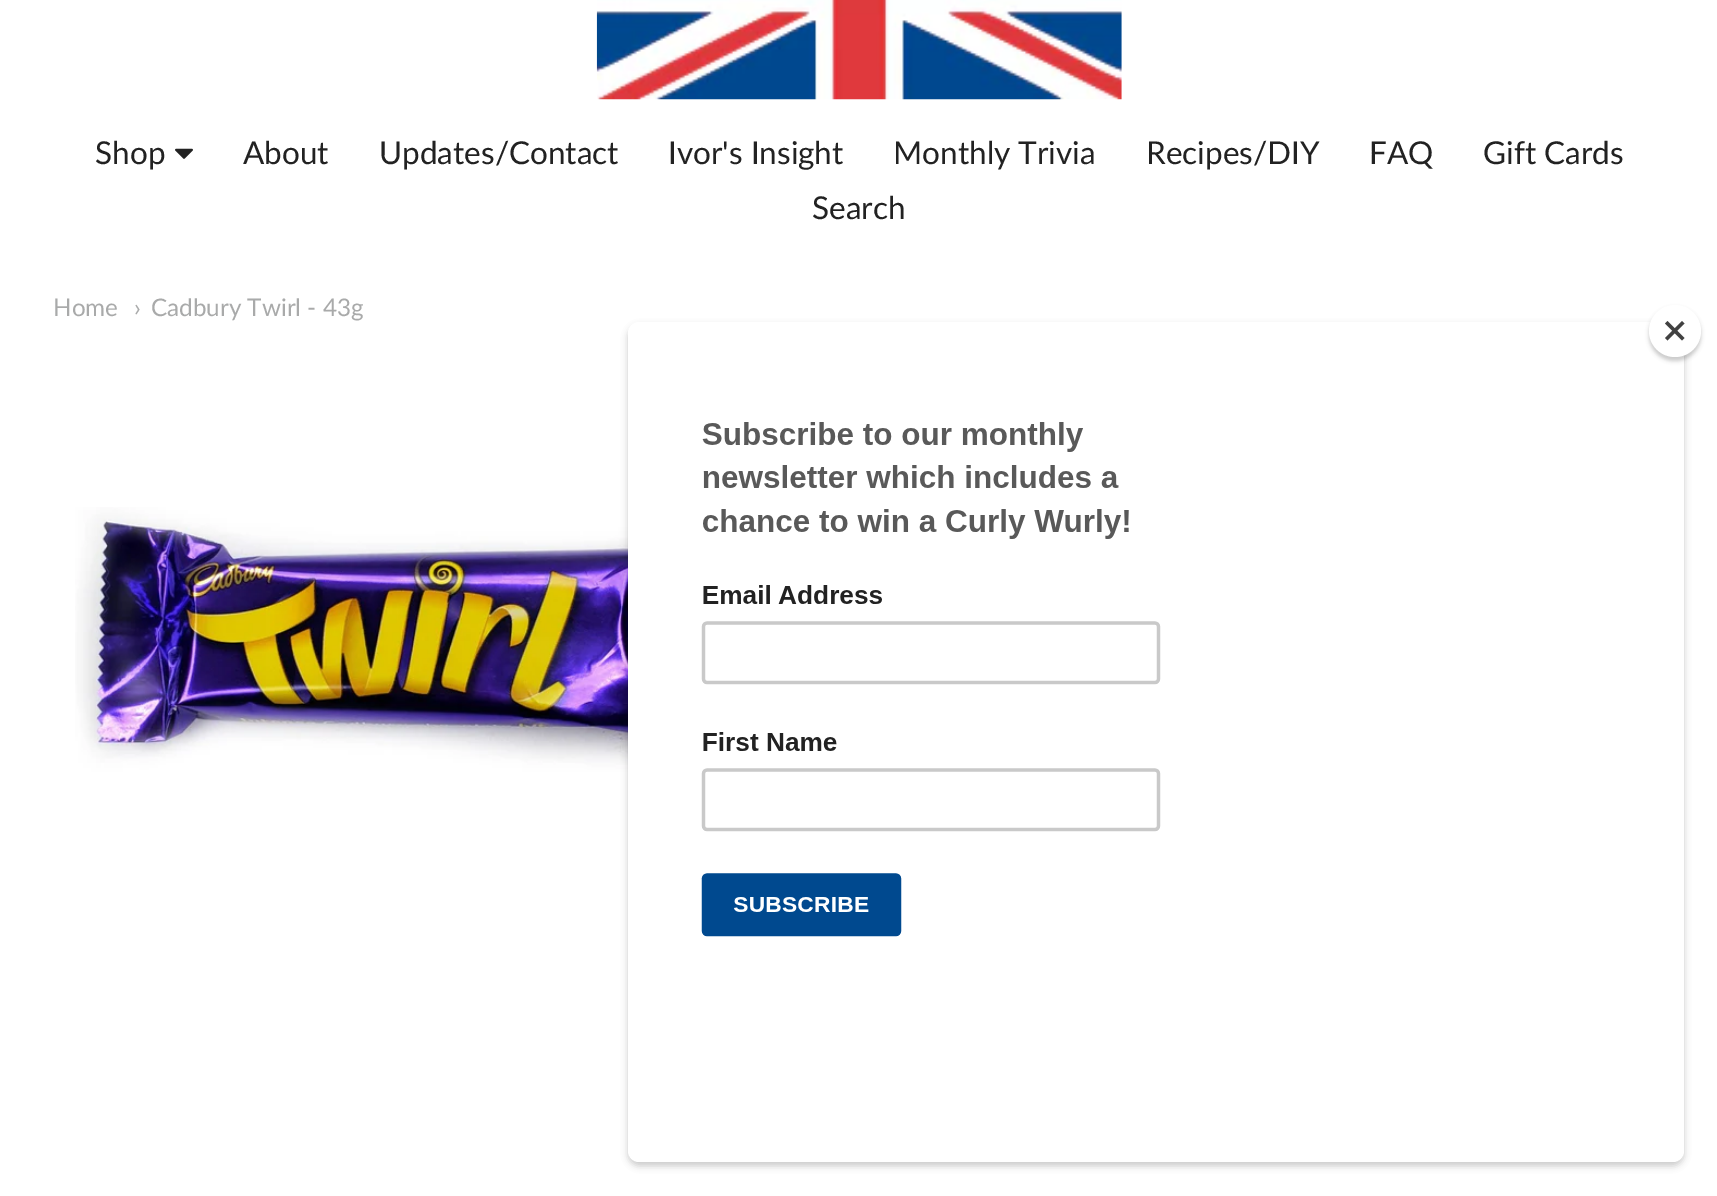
%!PS
<< /PageSize [1717 1196] /PageUsesTransparency true >> setpagedevice
/mt/moveto load def
/li/lineto load def
/cp/closepath load def
/fl/fill load def
/co { dup -16 bitshift 255 div exch dup -8 bitshift 255 and 255 div exch 255 and 255 div setrgbcolor } def
/fn { [ exch dup neg 0 0 3 -1 roll 0 0 ] selectfont } def
/tx { co fn moveto show } def
/bx { co rectfill } def
/al { dup .setfillconstantalpha .setstrokeconstantalpha } def
/ci { newpath 0 360 arc closepath } def
/rr { 5 dict begin { /r /h /w /y /x } { exch def } forall
  x r add y moveto x w add y 2 copy h add r arct x w add y h add x 1 index r arct
  x y h add x y r arct x y 2 copy exch w add exch r arct closepath end } def
/sh { 12 dict begin { /a /b /q /h /w /y /x } { exch def } forall gsave /was 0 def
  9 -2 -9 { dup b mul 4 div /e exch def 1 sub .425 mul 2.718 exch exp 1 add a .99 .min exch div /now exch def
    1 1 now sub 1 was sub div sub al /was now def
    w h .min e 2 mul add 0 gt { x e sub y e sub w e 2 mul add h e 2 mul add
      q e add b .6 mul add w h .min 2 div e add .min 0 .max rr fill } if } for grestore end } def
/im { 5 dict begin { /h /w /y /x /name } { exch def } forall
  gsave x y translate w h scale
  w h 8 [w 0 0 h 0 0] name (r) file false 3 colorimage grestore end } def
0 .pushpdf14devicefilter
0 1196 translate 1 -1 scale
4 setmiterlimit
0 0 1717 1196 16#FFFFFF bx
(media/1.raw) 596 0 526 100 im
(media/2.raw) 175 148 18 11 im
(media/3.raw) 75 507 553 265 im
16#000000 co
628 326 1056 840 11 3.5 .2 sh
16#FFFFFF co
628 322 1056 840 11 rr fl
16#000000 co
1649 308 52 53 26 2 .2 sh
16#FFFFFF co
1675 331 26 ci fl
16#414141 co
1682 321 mt 1684.5 323.5 li 1667.5 340.5 li 1665 338 li cp fl
1665 323.5 mt 1667.5 321 li 1684.5 338 li 1682 340.5 li cp fl
(media/4.raw) 701 422 460 515 im
(Shop) 95 164 /Lato-Regular 31.5 16#222222 tx
(About) 243 164 /Lato-Regular 31.5 16#222222 tx
(Updates/Contact) 379 164 /Lato-Regular 31.5 16#222222 tx
(Ivor's Insight) 668 164 /Lato-Regular 31.5 16#222222 tx
(Monthly Trivia) 893 164 /Lato-Regular 31.5 16#222222 tx
(Recipes/DIY) 1146 164 /Lato-Regular 31.5 16#222222 tx
(FAQ) 1369 164 /Lato-Regular 31.5 16#222222 tx
(Gift Cards) 1483 164 /Lato-Regular 31.5 16#222222 tx
(Search) 812 219 /Lato-Regular 31.5 16#222222 tx
(Home) 53 316 /Lato-Regular 24.25 16#A9AAAA tx
(›) 134 316 /Lato-Regular 24.25 16#A9AAAA tx
(Cadbury Twirl - 43g) 151 316 /Lato-Regular 24.25 16#A9AAAA tx
.poppdf14devicefilter showpage
